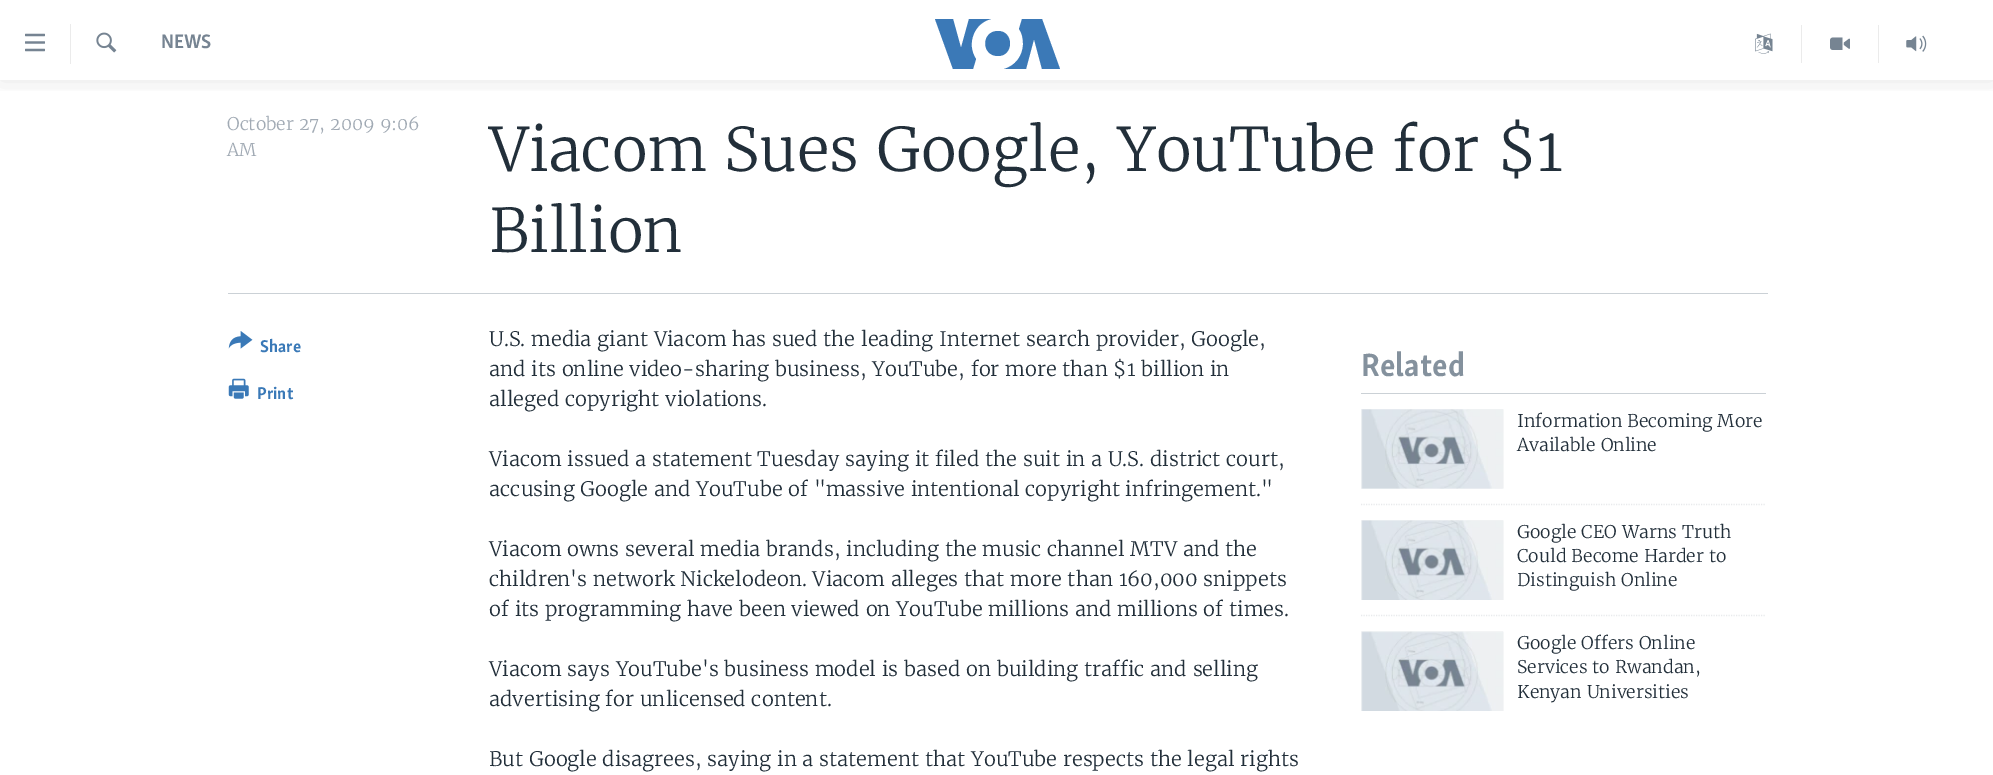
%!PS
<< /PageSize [1993 775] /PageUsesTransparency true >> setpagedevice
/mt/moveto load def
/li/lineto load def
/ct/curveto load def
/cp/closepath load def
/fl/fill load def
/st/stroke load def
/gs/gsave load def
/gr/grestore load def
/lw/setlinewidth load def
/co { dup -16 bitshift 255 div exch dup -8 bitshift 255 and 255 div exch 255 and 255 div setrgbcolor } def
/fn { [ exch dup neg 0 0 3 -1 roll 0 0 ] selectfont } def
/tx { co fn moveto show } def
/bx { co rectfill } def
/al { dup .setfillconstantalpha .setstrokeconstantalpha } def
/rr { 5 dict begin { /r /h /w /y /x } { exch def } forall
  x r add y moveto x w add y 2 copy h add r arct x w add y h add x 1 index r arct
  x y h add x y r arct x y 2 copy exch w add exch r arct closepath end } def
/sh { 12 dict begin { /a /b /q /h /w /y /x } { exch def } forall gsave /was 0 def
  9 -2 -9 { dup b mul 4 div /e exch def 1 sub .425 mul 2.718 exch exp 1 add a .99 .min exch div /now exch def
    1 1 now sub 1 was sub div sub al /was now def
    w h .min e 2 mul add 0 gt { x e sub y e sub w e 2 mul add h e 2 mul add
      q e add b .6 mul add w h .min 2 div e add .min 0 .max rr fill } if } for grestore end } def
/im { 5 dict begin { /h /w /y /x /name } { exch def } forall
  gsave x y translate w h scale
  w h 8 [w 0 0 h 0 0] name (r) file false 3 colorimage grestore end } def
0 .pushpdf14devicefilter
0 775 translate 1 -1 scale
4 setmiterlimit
0 0 1993 775 16#FFFFFF bx
gs
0 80 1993 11 rectclip
16#000000 co
0 0 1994 80 0 12.5 .1 sh
gr
(media/1.raw) 25 33 20 19 im
70 24 1 40 16#EBEBEB bx
(media/2.raw) 96 32 21 21 im
16#3B79B7 co
976 59 mt 973 69 li 953 69 li 935 19 li 953 19 li 961 48 li 969 19 li 991 19 li 974 23 966 44 976 59 ct cp 998 31 mt 981 31 981 56 998 56 ct 1014 56 1014 31 998 31 ct cp 1023 44 mt 1023 56 1015 66 1004 69 ct 1026 69 li 1034 39 li 1042 69 li 1060 69 li 1042 19 li 1022 19 li 1019 29 li 1022 33 1023 38 1023 44 ct cp fl
1801 25 1 38 16#EBEBEB bx
(media/3.raw) 1755 33 18 21 im
1878 25 1 38 16#EBEBEB bx
(media/4.raw) 1830 37 20 13 im
(media/5.raw) 1906 35 21 17 im
228 293 1540 1 16#CBD1D6 bx
(media/6.raw) 228 331 25 18 im
(media/7.raw) 228 378 21 21 im
1361 393 405 1 16#CBD1D6 bx
1361 409 142 80 16#F6F7F8 bx
(media/8.raw) 1361 409 143 80 im
16#E8EAEC co
1.2 lw
[1.25 1.25] 0 setdash
1361 504.5 mt 1766 504.5 li st
1361 520 142 80 16#F6F7F8 bx
(media/9.raw) 1361 520 143 80 im
16#E8EAEC co
1361 615.5 mt 1766 615.5 li st
1361 631 142 80 16#F6F7F8 bx
(media/10.raw) 1361 631 143 80 im
(NEWS) 161 48 /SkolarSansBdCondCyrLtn-Bold 20 16#768492 tx
(October 27, 2009 9:06) 227 130 /Merriweather-Light 17.5 16#A1AAB4 tx
(AM) 227 156 /Merriweather-Light 17.5 16#A1AAB4 tx
(Viacom Sues Google, YouTube for $1) 489 171 /Merriweather-Light 60 16#222F3A tx
(Billion) 489 252 /Merriweather-Light 60 16#222F3A tx
(Share) 260 352 /SkolarSansBdCondCyrLtn-Bold 17.5 16#3A79B7 tx
(Print) 257 399 /SkolarSansBdCondCyrLtn-Bold 17.5 16#3A79B7 tx
(U.S. media giant Viacom has sued the leading Internet search provider, Google,) 489 346 /Merriweather-Light 20 16#222F3A tx
(and its online video-sharing business, YouTube, for more than $1 billion in) 489 376 /Merriweather-Light 20 16#222F3A tx
(alleged copyright violations.) 489 406 /Merriweather-Light 20 16#222F3A tx
(Viacom issued a statement Tuesday saying it filed the suit in a U.S. district court,) 489 466 /Merriweather-Light 20 16#222F3A tx
(accusing Google and YouTube of "massive intentional copyright infringement.") 489 496 /Merriweather-Light 20 16#222F3A tx
(Viacom owns several media brands, including the music channel MTV and the) 489 556 /Merriweather-Light 20 16#222F3A tx
(children's network Nickelodeon. Viacom alleges that more than 160,000 snippets) 489 586 /Merriweather-Light 20 16#222F3A tx
(of its programming have been viewed on YouTube millions and millions of times.) 489 616 /Merriweather-Light 20 16#222F3A tx
(Viacom says YouTube's business model is based on building traffic and selling) 489 676 /Merriweather-Light 20 16#222F3A tx
(advertising for unlicensed content.) 489 706 /Merriweather-Light 20 16#222F3A tx
(But Google disagrees, saying in a statement that YouTube respects the legal rights) 489 766 /Merriweather-Light 20 16#222F3A tx
(Related) 1361 376 /SkolarSansBdCondCyrLtn-Bold 33 16#84919D tx
(Information Becoming More) 1517 427 /Merriweather-Light 17.5 16#222F3A tx
(Available Online) 1517 451 /Merriweather-Light 17.5 16#222F3A tx
(Google CEO Warns Truth) 1517 538 /Merriweather-Light 17.5 16#222F3A tx
(Could Become Harder to) 1517 562 /Merriweather-Light 17.5 16#222F3A tx
(Distinguish Online) 1517 586 /Merriweather-Light 17.5 16#222F3A tx
(Google Offers Online) 1517 649 /Merriweather-Light 17.5 16#222F3A tx
(Services to Rwandan,) 1517 673 /Merriweather-Light 17.5 16#222F3A tx
(Kenyan Universities) 1517 698 /Merriweather-Light 17.5 16#222F3A tx
.poppdf14devicefilter showpage
